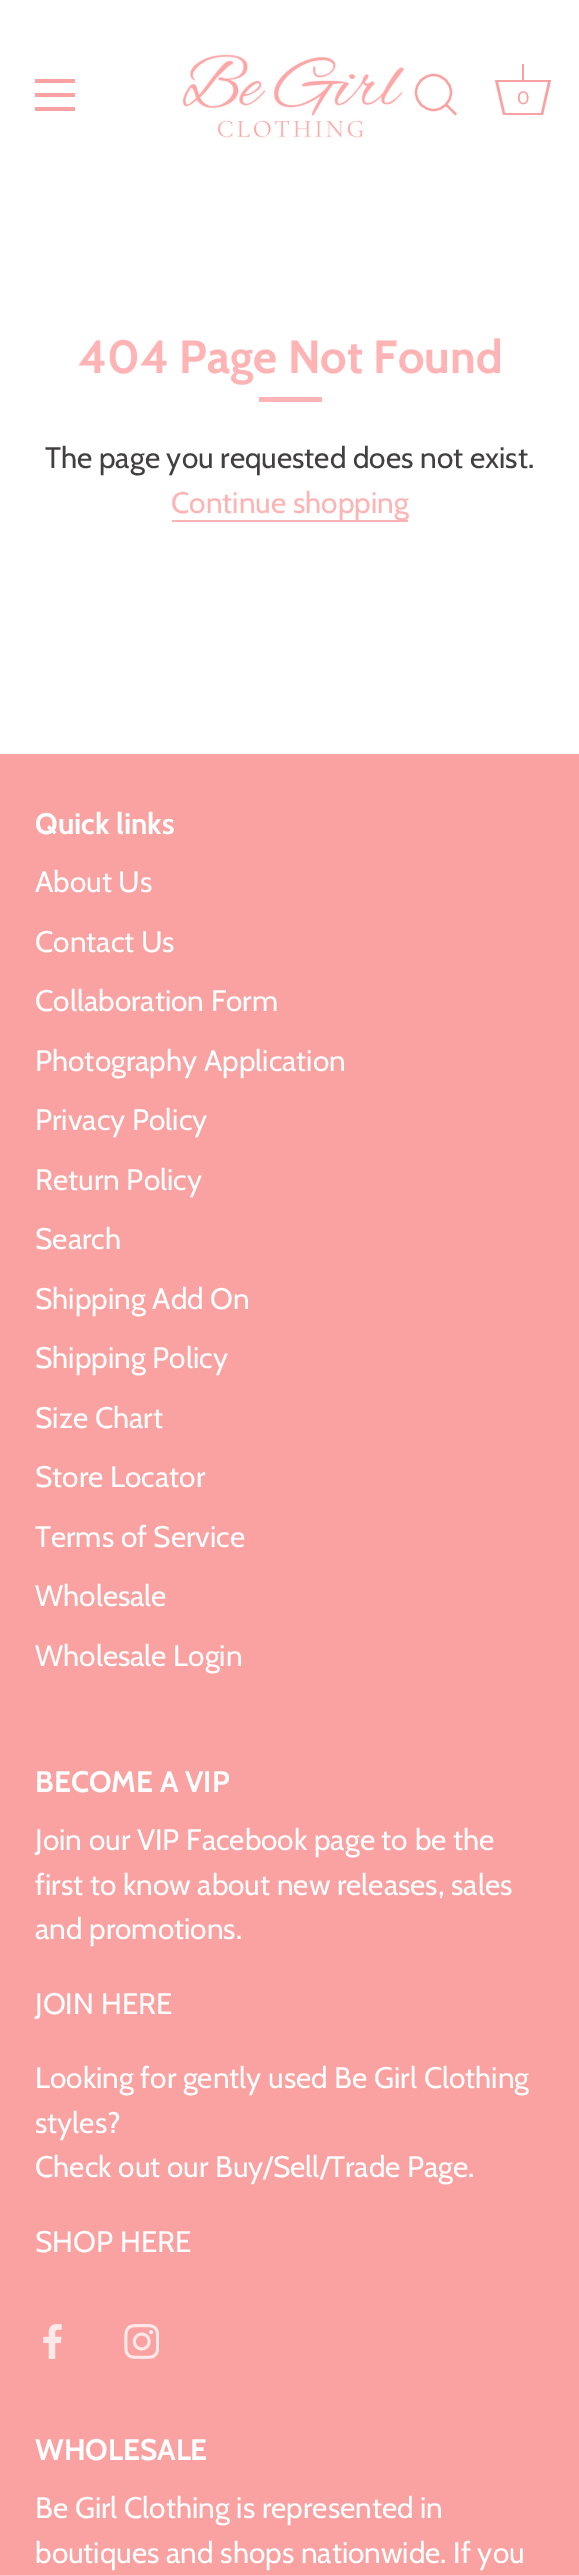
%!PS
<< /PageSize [579 2575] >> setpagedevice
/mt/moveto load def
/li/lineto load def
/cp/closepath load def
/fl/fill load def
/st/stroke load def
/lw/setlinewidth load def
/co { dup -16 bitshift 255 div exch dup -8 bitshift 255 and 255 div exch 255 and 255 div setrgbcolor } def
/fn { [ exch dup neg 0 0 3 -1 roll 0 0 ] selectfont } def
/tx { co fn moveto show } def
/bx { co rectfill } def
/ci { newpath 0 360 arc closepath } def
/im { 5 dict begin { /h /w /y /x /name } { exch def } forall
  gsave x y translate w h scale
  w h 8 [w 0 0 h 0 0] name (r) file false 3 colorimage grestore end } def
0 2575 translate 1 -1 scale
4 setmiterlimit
0 0 579 2575 16#FFFFFF bx
35 79 40 4 16#FAA2A2 bx
35 93 40 4 16#FAA2A2 bx
35 107 40 4 16#FAA2A2 bx
(media/1.raw) 182 52 225 89 im
2.2 lw
433.5 92.5 17.5 ci st
1 setlinecap
1 setlinejoin
455.5 114 mt 446 104.5 li st
522 64 2 16 16#FAA2A2 bx
548 82 mt 541 113 li 505 113 li 498 82 li 548 82 li 551 80 mt 495 80 li 503 115 li 543 115 li cp fl
259 397 63 5 16#FEB4B4 bx
172 520 236 2 16#FEB4B4 bx
0 754 579 1821 16#FAA2A2 bx
(media/2.raw) 43 2324 19 35 im
(media/3.raw) 124 2324 35 35 im
(0) 517 104 /Cabin-Regular 18 16#FAA2A2 tx
(404 Page Not Found) 78 373 /Cabin-Bold 46.5 16#FEB4B4 tx
(The page you requested does not exist.) 45 468 /Cabin-Regular 29.75 16#423F3F tx
(Continue shopping) 171 513 /Cabin-Regular 29.75 16#FEB4B4 tx
(Quick links) 35 834 /Cabin-Bold 29.75 16#FFFFFF tx
(About Us) 35 892 /Cabin-Regular 29.75 16#FFFFFF tx
(Contact Us) 35 952 /Cabin-Regular 29.75 16#FFFFFF tx
(Collaboration Form) 35 1011 /Cabin-Regular 29.75 16#FFFFFF tx
(Photography Application) 35 1071 /Cabin-Regular 29.75 16#FFFFFF tx
(Privacy Policy) 35 1130 /Cabin-Regular 29.75 16#FFFFFF tx
(Return Policy) 35 1190 /Cabin-Regular 29.75 16#FFFFFF tx
(Search) 35 1249 /Cabin-Regular 29.75 16#FFFFFF tx
(Shipping Add On) 35 1309 /Cabin-Regular 29.75 16#FFFFFF tx
(Shipping Policy) 35 1368 /Cabin-Regular 29.75 16#FFFFFF tx
(Size Chart) 35 1428 /Cabin-Regular 29.75 16#FFFFFF tx
(Store Locator) 35 1487 /Cabin-Regular 29.75 16#FFFFFF tx
(Terms of Service) 35 1547 /Cabin-Regular 29.75 16#FFFFFF tx
(Wholesale) 35 1606 /Cabin-Regular 29.75 16#FFFFFF tx
(Wholesale Login) 35 1666 /Cabin-Regular 29.75 16#FFFFFF tx
(BECOME A VIP) 35 1792 /Cabin-Bold 29.75 16#FFFFFF tx
(Join our VIP Facebook page to be the) 35 1850 /Cabin-Regular 29.75 16#FFFFFF tx
(first to know about new releases, sales) 35 1895 /Cabin-Regular 29.75 16#FFFFFF tx
(and promotions.) 35 1939 /Cabin-Regular 29.75 16#FFFFFF tx
(JOIN HERE) 35 2014 /Cabin-Regular 29.75 16#FFFFFF tx
(Looking for gently used Be Girl Clothing) 35 2088 /Cabin-Regular 29.75 16#FFFFFF tx
(styles?) 35 2133 /Cabin-Regular 29.75 16#FFFFFF tx
(Check out our Buy/Sell/Trade Page.) 35 2177 /Cabin-Regular 29.75 16#FFFFFF tx
(SHOP HERE) 35 2252 /Cabin-Regular 29.75 16#FFFFFF tx
(WHOLESALE) 35 2460 /Cabin-Bold 29.75 16#FFFFFF tx
(Be Girl Clothing is represented in) 35 2518 /Cabin-Regular 29.75 16#FFFFFF tx
(boutiques and shops nationwide. If you) 35 2563 /Cabin-Regular 29.75 16#FFFFFF tx
showpage
